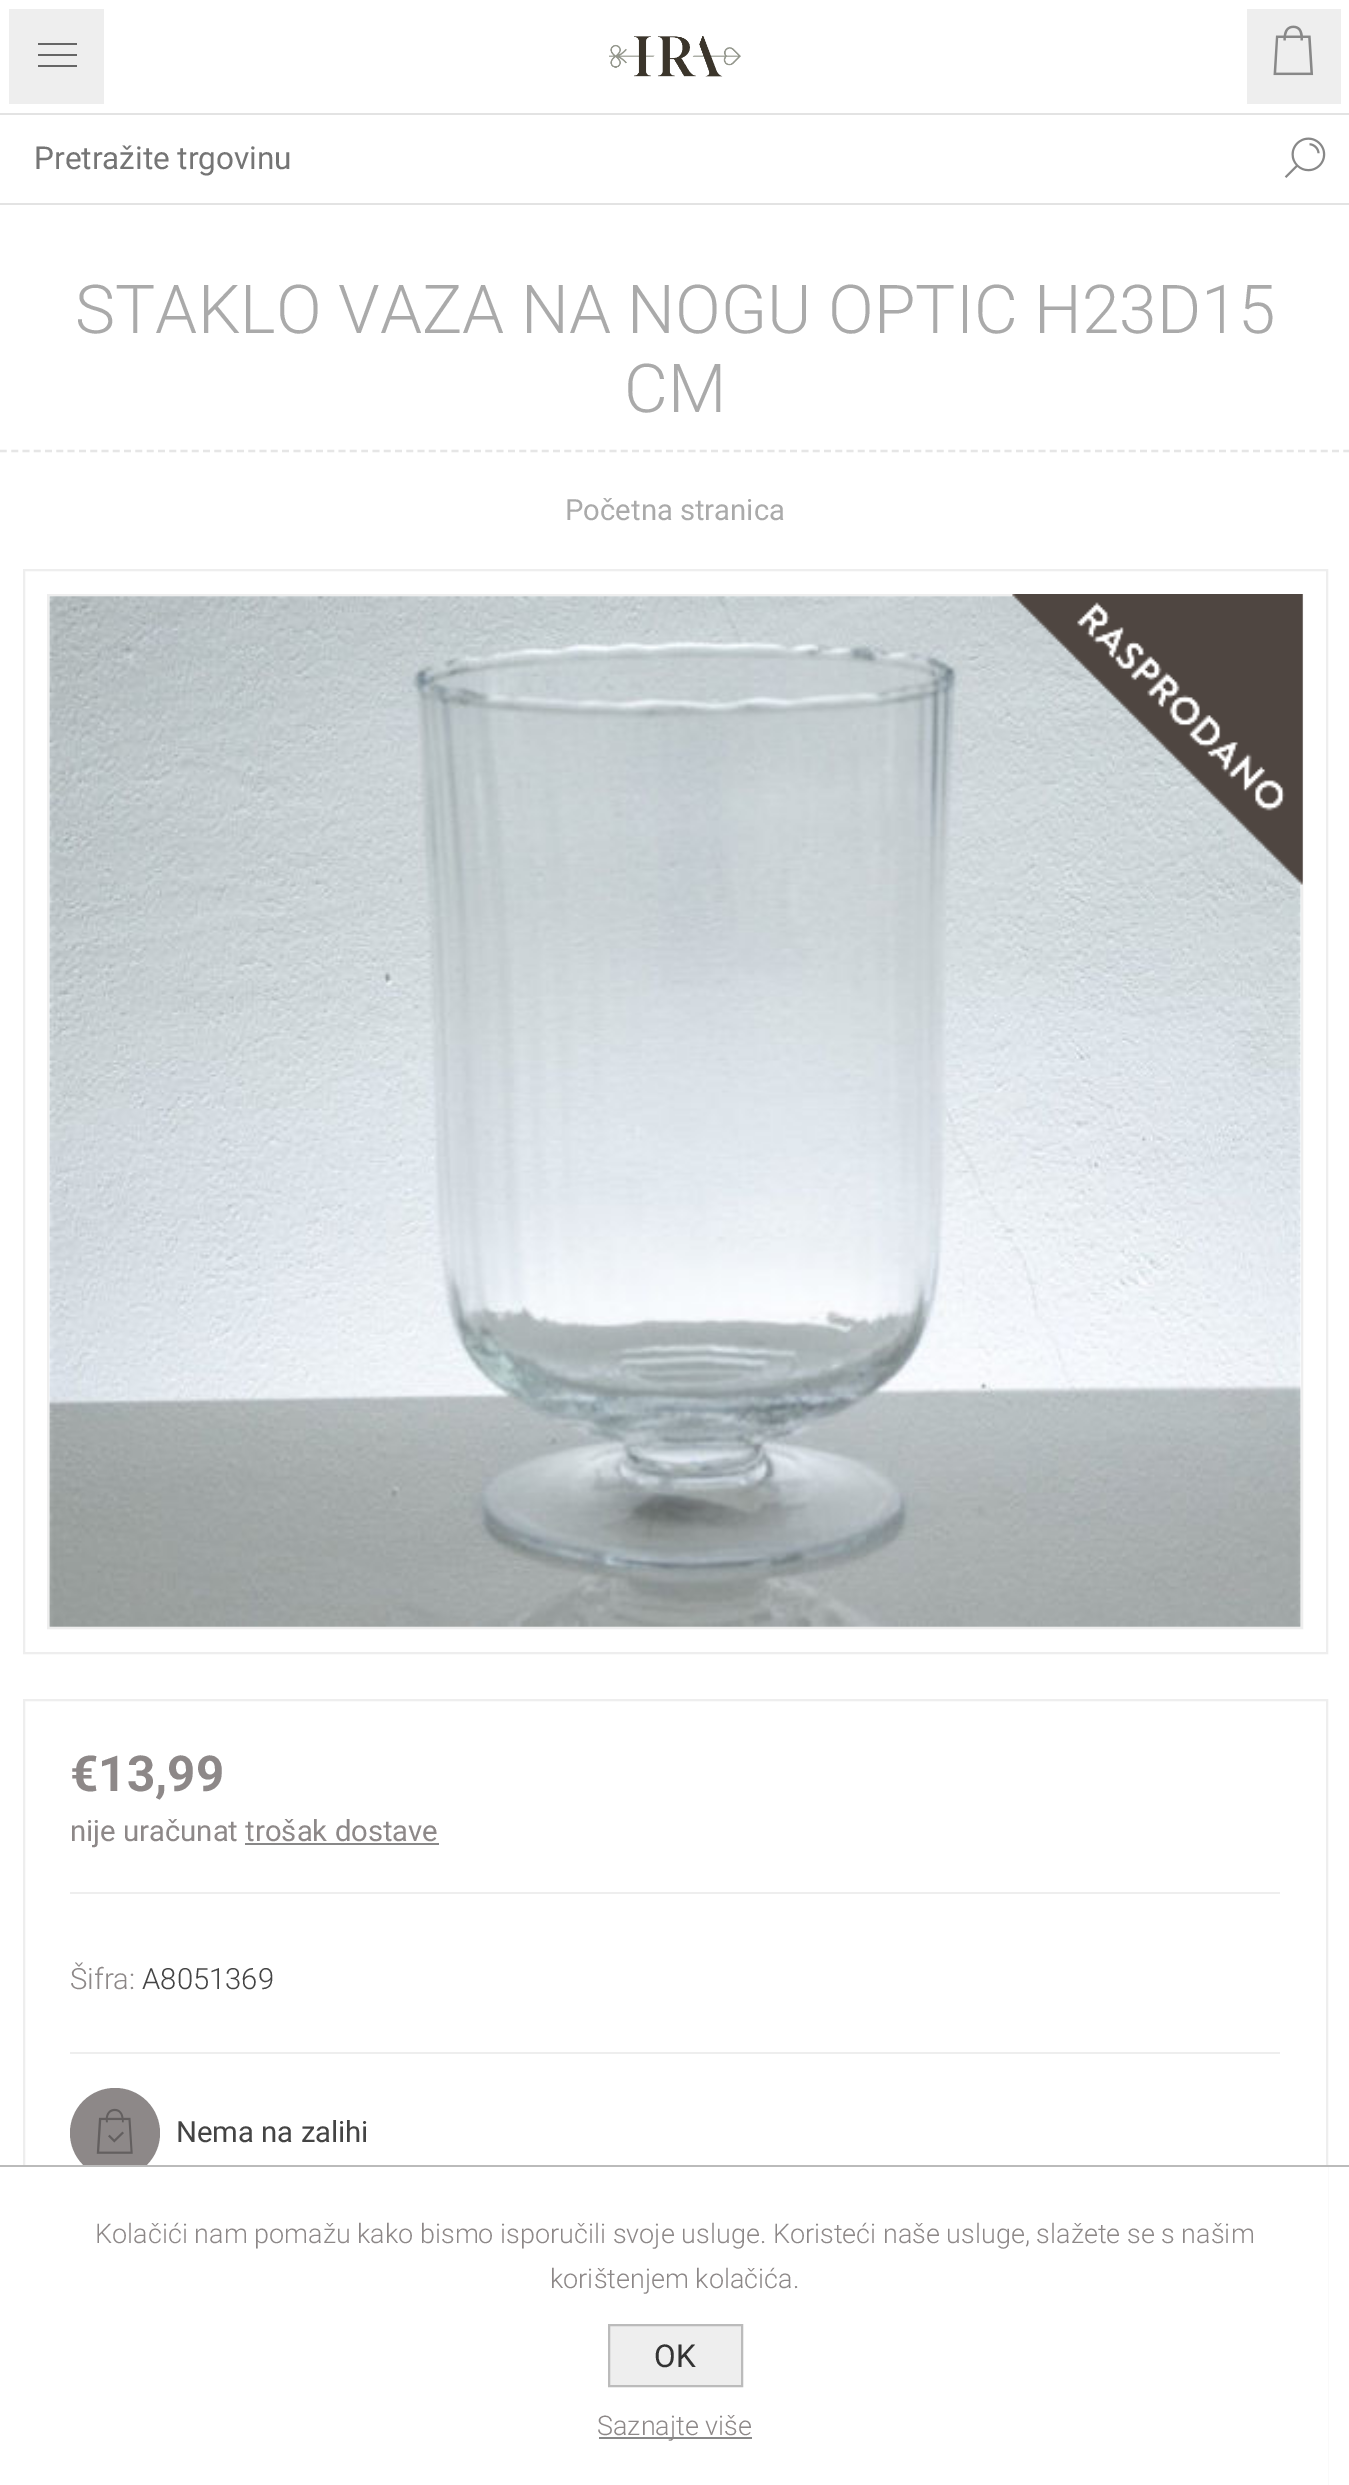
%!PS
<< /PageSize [1349 2485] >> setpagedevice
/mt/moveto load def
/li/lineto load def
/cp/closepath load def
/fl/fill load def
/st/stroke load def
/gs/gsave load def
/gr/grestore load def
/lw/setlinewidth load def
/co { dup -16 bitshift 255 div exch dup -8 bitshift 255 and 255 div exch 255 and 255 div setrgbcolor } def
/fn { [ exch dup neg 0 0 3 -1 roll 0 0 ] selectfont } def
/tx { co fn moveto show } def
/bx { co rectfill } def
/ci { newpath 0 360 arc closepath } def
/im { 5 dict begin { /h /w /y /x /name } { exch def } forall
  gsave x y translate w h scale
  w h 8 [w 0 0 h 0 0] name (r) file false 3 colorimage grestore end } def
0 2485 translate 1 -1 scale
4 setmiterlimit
0 0 1349 2485 16#FFFFFF bx
9 9 95 95 16#EEEEEE bx
38 43 39 2 16#666666 bx
38 54 39 2 16#666666 bx
38 65 39 2 16#666666 bx
1247 9 94 95 16#EEEEEE bx
(media/1.raw) 1273 25 41 51 im
0 113 1349 2 16#E3E3E3 bx
(media/2.raw) 609 36 132 41 im
0 203 1349 2 16#E3E3E3 bx
(media/3.raw) 1284 137 42 41 im
16#E6E6E6 co
2.2 lw
[6.75 4.54] 0 setdash
0 451 mt 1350 451 li st
16#EEEEEE co
2 lw
[] 0 setdash
24 570 1303 1083 rectstroke
48 595 1254 1033 rectstroke
(media/4.raw) 49 596 1252 1031 im
(media/5.raw) 1012 594 291 291 im
24 1700 1303 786 rectstroke
70 1892 1210 2 16#EEEEEE bx
70 2052 1210 2 16#EEEEEE bx
16#8D8888 co
115 2133 45 ci fl
(media/6.raw) 96 2108 37 46 im
23 2167 1305 318 16#FFFFFF bx
0 2165 1349 2 16#BBBBBB bx
16#EEEEEE co
609 2325 mt 742 2325 li 742 2386 li 609 2386 li cp gs fl gr
16#BBBBBB co
st
599 2437 153 2 16#888888 bx
(Pretražite trgovinu) 34 169 /Roboto-Regular 31.5 16#757575 tx
(STAKLO VAZA NA NOGU OPTIC H23D15) 75 333 /Roboto-Light 67.5 16#AAAAAA tx
(CM) 624 412 /Roboto-Light 67.5 16#AAAAAA tx
(Početna stranica) 565 520 /Roboto-Regular 29.25 16#AAAAAA tx
(€13,99) 70 1791 /Roboto-Bold 49.5 16#8D8888 tx
(nije uračunat trošak dostave) 70 1841 /Roboto-Regular 29.25 16#8D8888 tx
245 1843 194 2 16#888888 bx
(Šifra:) 70 1989 /Roboto-Light 29.25 16#8D8888 tx
(A8051369) 142 1989 /Roboto-Light 29.25 16#444444 tx
(Nema na zalihi) 176 2142 /Roboto-Regular 29.25 16#444444 tx
(Kolačići nam pomažu kako bismo isporučili svoje usluge. Koristeći naše usluge, slažete se s našim) 95 2243 /Roboto-Light 27 16#8D8888 tx
(korištenjem kolačića.) 550 2288 /Roboto-Light 27 16#8D8888 tx
(OK) 654 2367 /Roboto-Regular 31.5 16#333333 tx
(Saznajte više) 597 2435 /Roboto-Light 27 16#8D8888 tx
showpage
